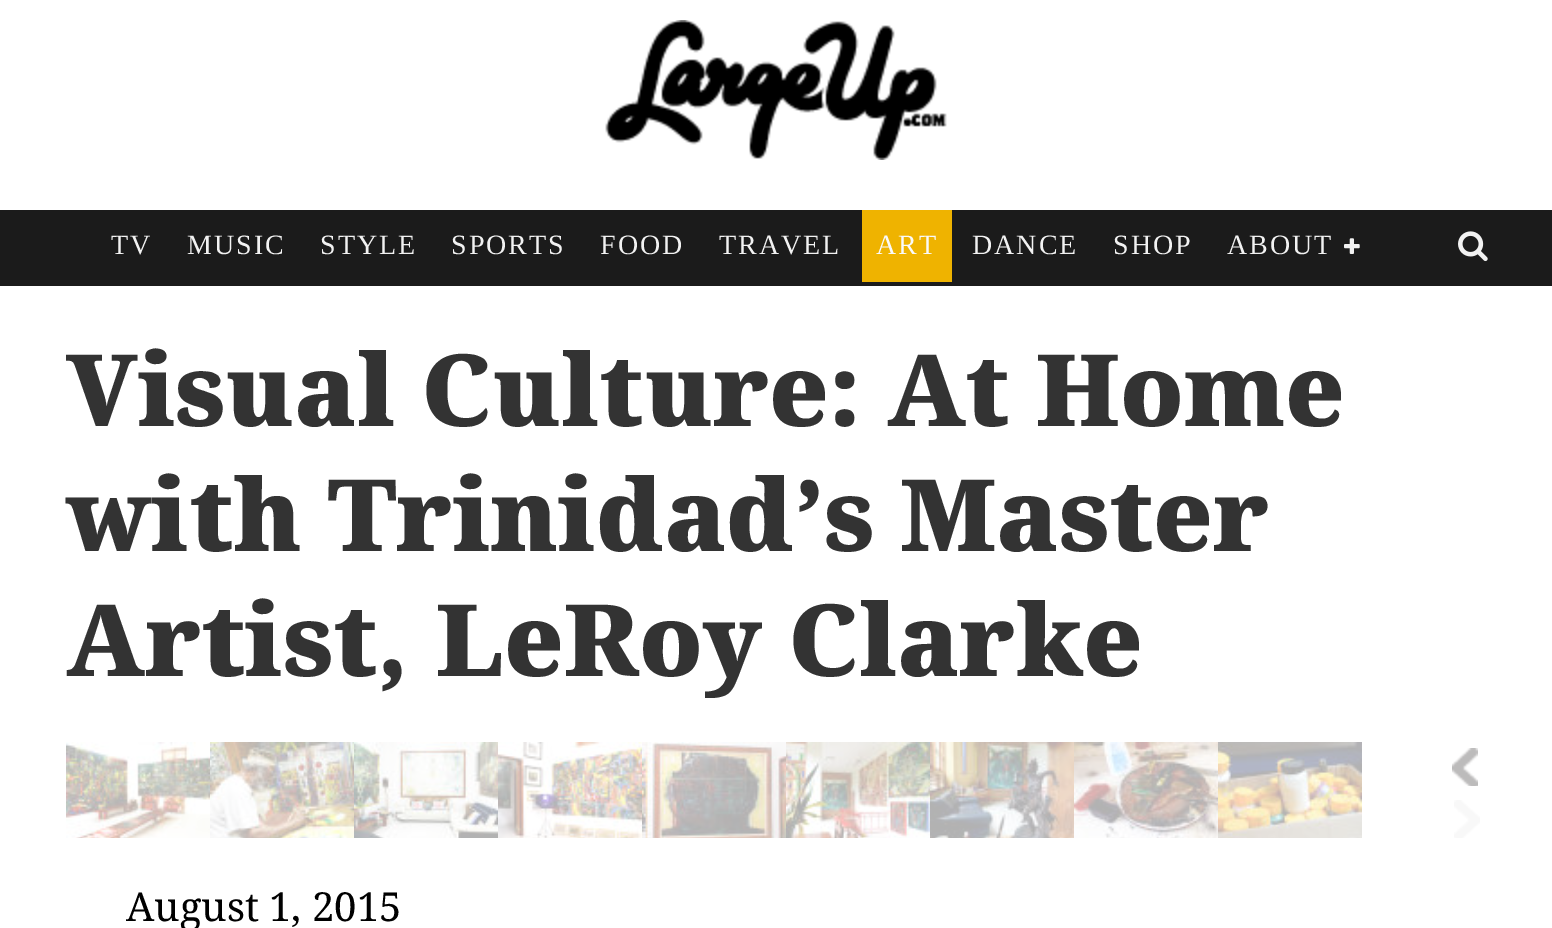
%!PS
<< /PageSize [1552 928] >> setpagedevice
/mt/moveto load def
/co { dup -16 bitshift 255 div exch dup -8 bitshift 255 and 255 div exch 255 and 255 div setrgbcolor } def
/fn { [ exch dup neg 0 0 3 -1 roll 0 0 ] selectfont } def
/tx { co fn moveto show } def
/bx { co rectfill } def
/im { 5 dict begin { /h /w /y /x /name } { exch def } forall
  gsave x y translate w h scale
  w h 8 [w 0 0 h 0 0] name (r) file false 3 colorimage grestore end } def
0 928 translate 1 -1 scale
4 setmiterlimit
0 0 1552 928 16#FFFFFF bx
(media/1.raw) 605 20 342 140 im
0 210 1552 76 16#1B1B1B bx
862 210 90 72 16#EFB300 bx
(media/2.raw) 1344 238 16 16 im
(media/3.raw) 1458 231 30 31 im
(media/4.raw) 66 742 144 96 im
(media/5.raw) 210 742 144 96 im
(media/6.raw) 354 742 144 96 im
(media/7.raw) 498 742 144 96 im
(media/8.raw) 642 742 144 96 im
(media/9.raw) 786 742 144 96 im
(media/10.raw) 930 742 144 96 im
(media/11.raw) 1074 742 144 96 im
(media/12.raw) 1218 742 144 96 im
(media/13.raw) 1452 748 26 38 im
(media/14.raw) 1454 800 26 38 im
/LiberationSerif-Regular 28 fn
16#F2F2F2 co
111 254 mt 2 0 (TV) ashow
187 254 mt 2 0 (MUSIC) ashow
320 254 mt 2 0 (STYLE) ashow
451 254 mt 2 0 (SPORTS) ashow
600 254 mt 2 0 (FOOD) ashow
719 254 mt 2 0 (TRAVEL) ashow
16#FAFAFA co
876 254 mt 2 0 (ART) ashow
16#F2F2F2 co
972 254 mt 2 0 (DANCE) ashow
1113 254 mt 2 0 (SHOP) ashow
1227 254 mt 2 0 (ABOUT) ashow
(Visual Culture: At Home) 66 426 /NotoSerif-Black 100 16#333333 tx
(with Trinidad’s Master) 66 551 /NotoSerif-Black 100 16#333333 tx
(Artist, LeRoy Clarke) 66 676 /NotoSerif-Black 100 16#333333 tx
(August 1, 2015) 126 921 /NotoSerif-Regular 40 16#000000 tx
showpage
